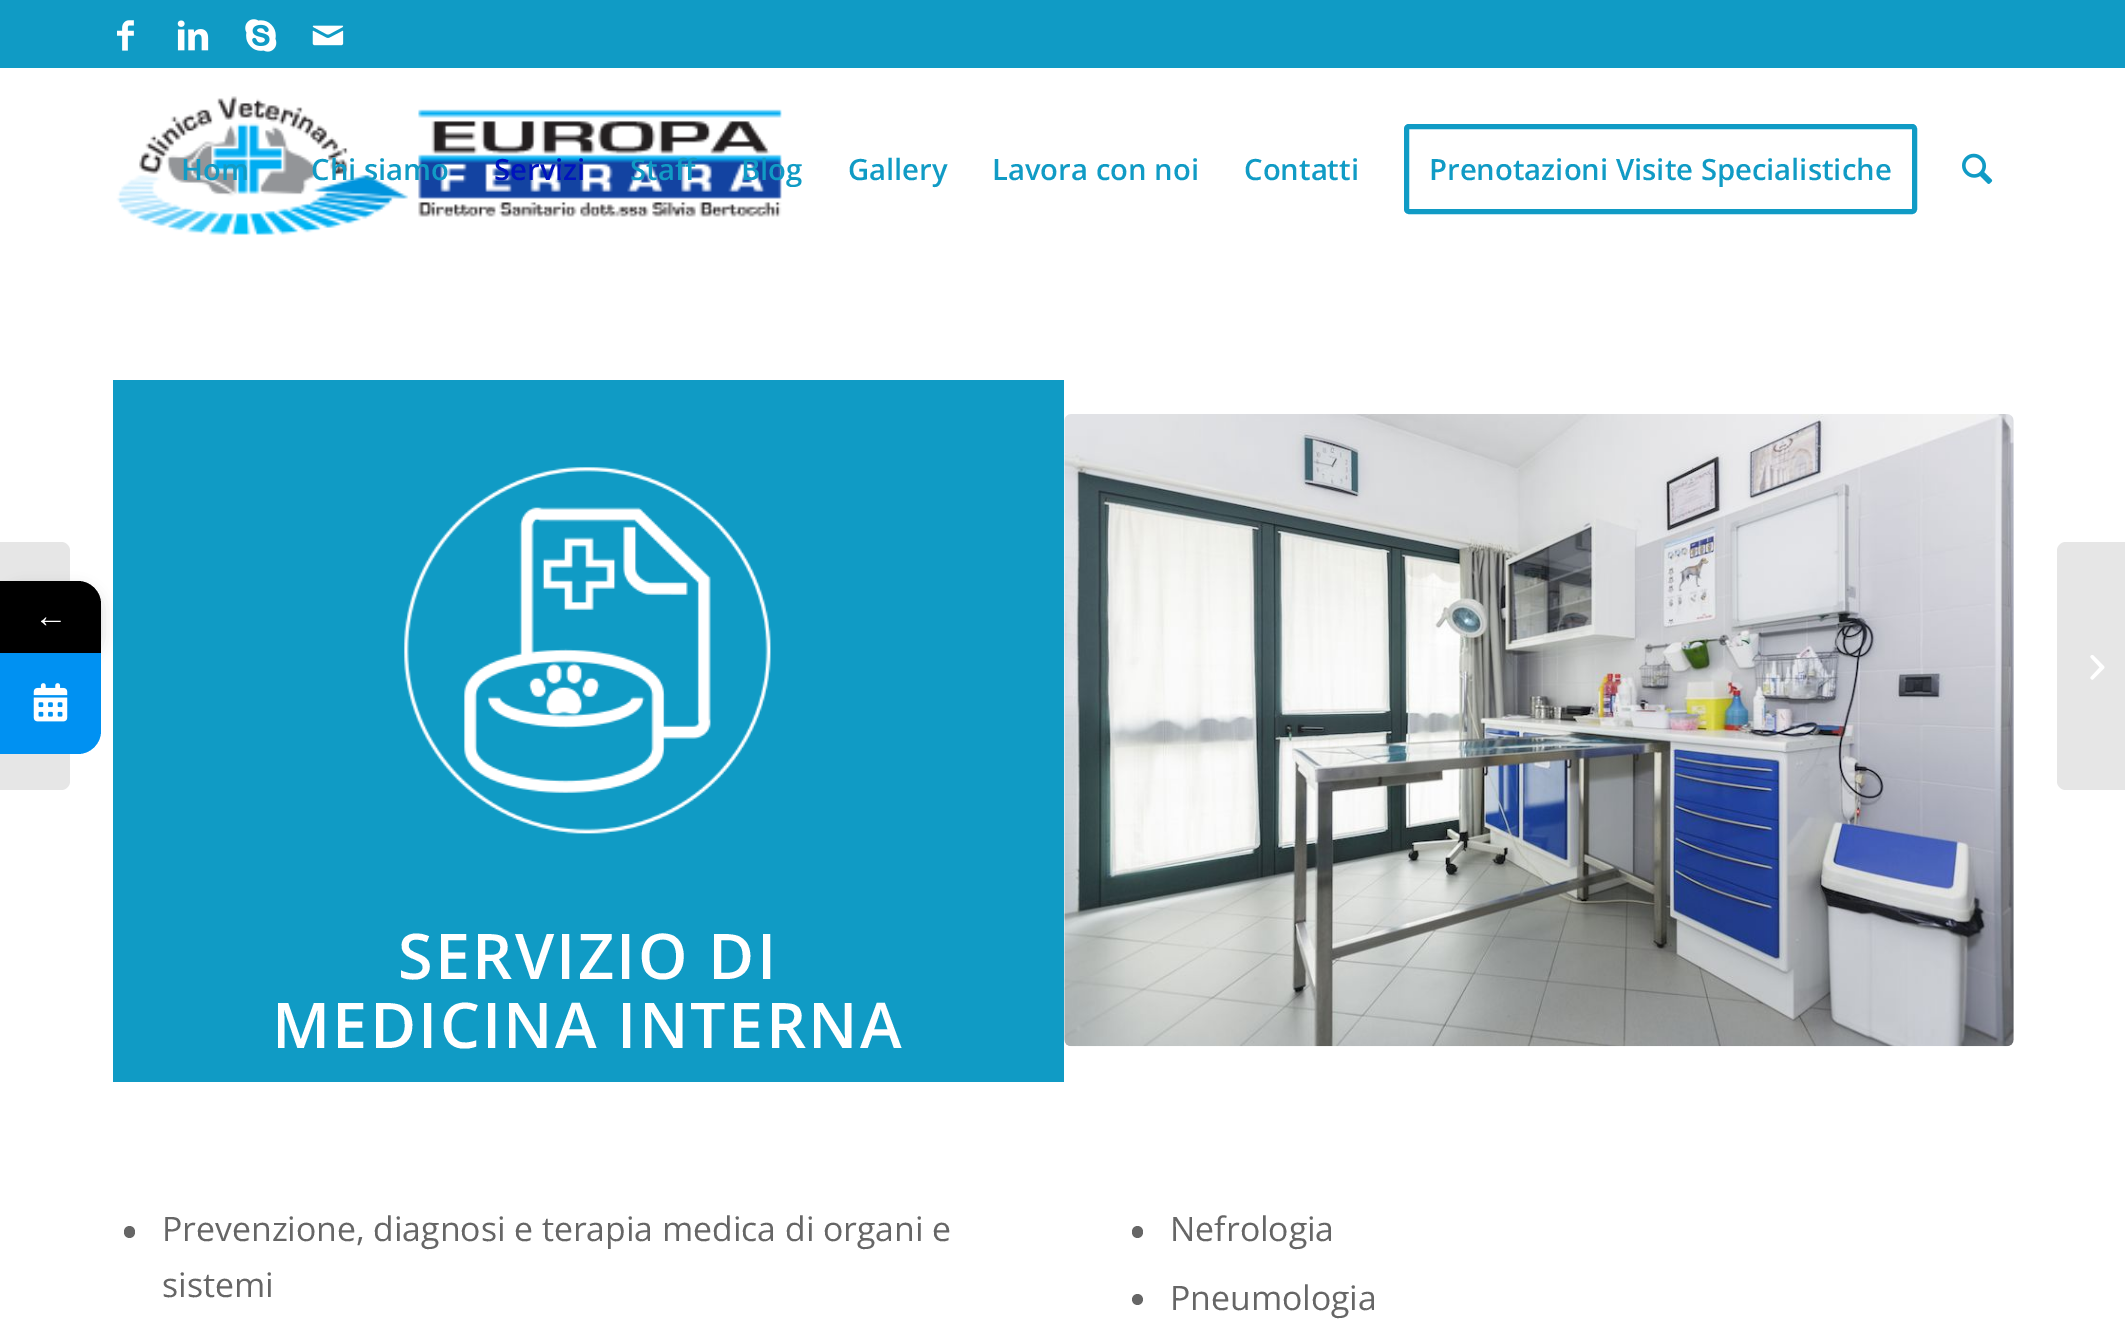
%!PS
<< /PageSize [2125 1332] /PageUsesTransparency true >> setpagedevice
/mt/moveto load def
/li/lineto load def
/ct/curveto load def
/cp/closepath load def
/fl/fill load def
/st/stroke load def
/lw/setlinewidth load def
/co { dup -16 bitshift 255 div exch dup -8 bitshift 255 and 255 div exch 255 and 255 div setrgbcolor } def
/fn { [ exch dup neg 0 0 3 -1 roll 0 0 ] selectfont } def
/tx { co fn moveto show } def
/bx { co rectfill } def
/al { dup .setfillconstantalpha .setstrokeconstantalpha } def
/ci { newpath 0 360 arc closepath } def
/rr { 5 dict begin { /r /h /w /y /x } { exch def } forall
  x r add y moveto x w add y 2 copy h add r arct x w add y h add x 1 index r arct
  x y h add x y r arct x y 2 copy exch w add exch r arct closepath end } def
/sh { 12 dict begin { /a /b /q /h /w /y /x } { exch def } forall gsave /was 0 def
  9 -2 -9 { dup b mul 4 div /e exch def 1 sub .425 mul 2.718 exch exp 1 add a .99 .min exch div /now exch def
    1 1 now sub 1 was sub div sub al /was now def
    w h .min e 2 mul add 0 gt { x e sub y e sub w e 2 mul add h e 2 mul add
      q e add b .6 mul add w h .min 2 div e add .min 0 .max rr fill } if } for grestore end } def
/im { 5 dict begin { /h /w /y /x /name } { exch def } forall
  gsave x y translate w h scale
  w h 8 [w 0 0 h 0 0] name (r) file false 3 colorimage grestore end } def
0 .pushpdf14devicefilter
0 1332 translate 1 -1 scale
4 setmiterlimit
0 0 2125 1332 16#FFFFFF bx
16#E6E6E6 co
0 542 mt 61 542 li 66 542 70 546 70 551 ct 70 781 li 70 786 66 790 61 790 ct 0 790 li cp fl
113 380 951 702 16#109BC5 bx
16#000000 co
0 587 101 72 23 7 .16 sh
0 581 mt 78 581 li 90.5 581 101 591.5 101 604 ct 101 653 li 0 653 li cp fl
16#0091F2 co
0 653 mt 101 653 li 101 731 li 101 743.5 90.5 754 78 754 ct 0 754 li cp fl
(media/1.raw) 33 683 35 39 im
0 0 2125 68 16#109BC5 bx
(media/2.raw) 117 20 17 31 im
(media/3.raw) 177 20 32 31 im
(media/4.raw) 245 19 32 33 im
(media/5.raw) 312 25 32 21 im
(media/6.raw) 116 96 666 139 im
5 lw
1406.5 126.5 508 85 2.5 rr st
(media/7.raw) 1962 153 31 31 im
16#E6E6E6 co
2066 542 mt 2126 542 li 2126 790 li 2066 790 li 2061 790 2057 786 2057 781 ct 2057 551 li 2057 546 2061 542 2066 542 ct cp fl
(media/8.raw) 2090 655 15 25 im
(media/9.raw) 404 467 367 367 im
(media/10.raw) 1064 414 950 633 im
16#666666 co
124 1226 11 12 5.5 rr fl
1132 1226 11 12 5.5 rr fl
1137.5 1299.5 5.5 ci fl
(←) 34 627 /LiberationSerif-Regular 33.75 16#FFFFFF tx
(Hom) 181 180 /OpenSans-SemiBold 29.25 16#109BC5 tx
(Chi siamo) 311 180 /OpenSans-SemiBold 29.25 16#109BC5 tx
(Servizi) 494 180 /OpenSans-SemiBold 29.25 16#0013BD tx
(Staff) 630 180 /OpenSans-SemiBold 29.25 16#109BC5 tx
(Blog) 741 180 /OpenSans-SemiBold 29.25 16#109BC5 tx
(Gallery) 848 180 /OpenSans-SemiBold 29.25 16#109BC5 tx
(Lavora con noi) 992 180 /OpenSans-SemiBold 29.25 16#109BC5 tx
(Contatti) 1244 180 /OpenSans-SemiBold 29.25 16#109BC5 tx
(Prenotazioni Visite Specialistiche) 1429 180 /OpenSans-SemiBold 29.25 16#109BC5 tx
/OpenSans-SemiBold 63 fn
16#FFFFFF co
398 979 mt 2.25 0 (SERVIZIO DI) ashow
272 1048 mt 2.25 0 (MEDICINA INTERNA) ashow
(Prevenzione, diagnosi e terapia medica di organi e) 162 1241 /OpenSans-Regular 33.75 16#666666 tx
(sistemi) 162 1297 /OpenSans-Regular 33.75 16#666666 tx
(Nefrologia) 1170 1241 /OpenSans-Regular 33.75 16#666666 tx
(Pneumologia) 1170 1310 /OpenSans-Regular 33.75 16#666666 tx
.poppdf14devicefilter showpage
